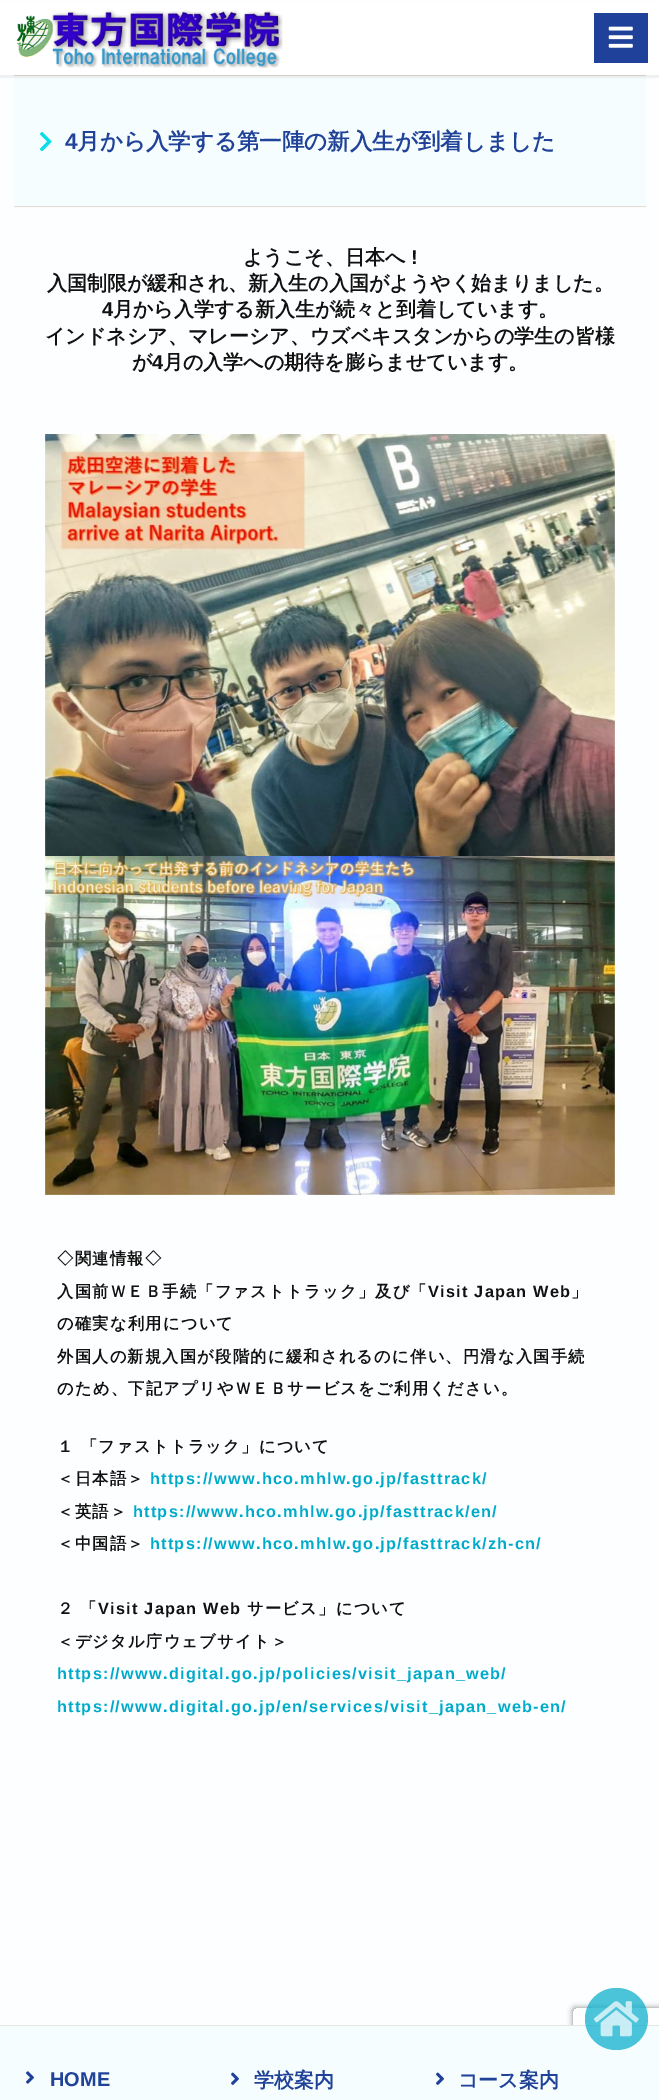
%!PS
<< /PageSize [659 2100] /PageUsesTransparency true >> setpagedevice
/mt/moveto load def
/li/lineto load def
/ct/curveto load def
/cp/closepath load def
/fl/fill load def
/gs/gsave load def
/gr/grestore load def
/co { dup -16 bitshift 255 div exch dup -8 bitshift 255 and 255 div exch 255 and 255 div setrgbcolor } def
/fn { [ exch dup neg 0 0 3 -1 roll 0 0 ] selectfont } def
/tx { co fn moveto show } def
/bx { co rectfill } def
/al { dup .setfillconstantalpha .setstrokeconstantalpha } def
/rr { 5 dict begin { /r /h /w /y /x } { exch def } forall
  x r add y moveto x w add y 2 copy h add r arct x w add y h add x 1 index r arct
  x y h add x y r arct x y 2 copy exch w add exch r arct closepath end } def
/sh { 12 dict begin { /a /b /q /h /w /y /x } { exch def } forall gsave /was 0 def
  9 -2 -9 { dup b mul 4 div /e exch def 1 sub .425 mul 2.718 exch exp 1 add a .99 .min exch div /now exch def
    1 1 now sub 1 was sub div sub al /was now def
    w h .min e 2 mul add 0 gt { x e sub y e sub w e 2 mul add h e 2 mul add
      q e add b .6 mul add w h .min 2 div e add .min 0 .max rr fill } if } for grestore end } def
/im { 5 dict begin { /h /w /y /x /name } { exch def } forall
  gsave x y translate w h scale
  w h 8 [w 0 0 h 0 0] name (r) file false 3 colorimage grestore end } def
0 .pushpdf14devicefilter
0 2100 translate 1 -1 scale
4 setmiterlimit
0 0 659 2100 16#FDFEFF bx
14 76 632 132 16#F6FDFE bx
14 75 632 1 16#E6DBCE bx
16#000000 co
0 3 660 75 0 .5 .05 sh
0 2 659 73 16#FFFFFF bx
(media/1.raw) 16 10 267 58 im
594 13 54 50 16#20419A bx
(media/2.raw) 608 26 25 22 im
14 206 632 1 16#E6DBCE bx
(media/3.raw) 40 132 12 20 im
(media/4.raw) 45 434 570 423 im
(media/5.raw) 45 856 570 339 im
gs
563 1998 mt 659 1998 li 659 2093 li 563 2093 li cp 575.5 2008 mt 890.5 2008 li 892 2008 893 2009 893 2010.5 ct 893 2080.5 li 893 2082 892 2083 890.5 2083 ct 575.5 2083 li 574 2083 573 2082 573 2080.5 ct 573 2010.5 li 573 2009 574 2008 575.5 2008 ct cp eoclip newpath
16#808080 co
573 2008 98 75 2.5 3 1 sh
gr
0 2026 659 74 16#F6FDFE bx
0 2025 659 1 16#E6E6E0 bx
0.7 al
16#00ABCA co
585 1988 63 62 31 rr fl
1 al
(media/6.raw) 593 2001 46 36 im
(media/7.raw) 26 2071 8 13 im
(media/8.raw) 231 2072 8 13 im
(media/8.raw) 436 2072 8 13 im
(4) 65 149 /LiberationSans-Bold 22.5 16#204298 tx
(月から入学する第一陣の新入生が到着しました) 77 149 /WenQuanYiZenHei-Bold 22.5 16#204298 tx
(ようこそ、日本へ) 243 264 /WenQuanYiZenHei-Bold 20 16#111111 tx
(!) 411 264 /LiberationSans-Bold 20 16#111111 tx
(入国制限が緩和され、新入生の入国がようやく始まりました。) 47 290 /WenQuanYiZenHei-Bold 20 16#111111 tx
(4) 102 316 /LiberationSans-Bold 20 16#111111 tx
(月から入学する新入生が続々と到着しています。) 113 316 /WenQuanYiZenHei-Bold 20 16#111111 tx
(インドネシア、マレーシア、ウズベキスタンからの学生の皆様) 45 343 /WenQuanYiZenHei-Bold 20 16#111111 tx
(が) 132 369 /WenQuanYiZenHei-Bold 20 16#111111 tx
(4) 152 369 /LiberationSans-Bold 20 16#111111 tx
(月の入学への期待を膨らませています。) 163 369 /WenQuanYiZenHei-Bold 20 16#111111 tx
/WenQuanYiZenHei-Bold 16.25 fn
57 1264 mt 1.25 0 (◇関連情報◇) ashow
57 1297 mt 1.25 0 (入国前ＷＥＢ手続「ファストトラック」及び「) ashow
/LiberationSans-Bold 16.25 fn
428 1297 mt 1.25 0 (Visit Japan Web) ashow
/WenQuanYiZenHei-Bold 16.25 fn
571 1297 mt 1.25 0 (」) ashow
57 1329 mt 1.25 0 (の確実な利用について) ashow
57 1362 mt 1.25 0 (外国人の新規入国が段階的に緩和されるのに伴い、円滑な入国手続) ashow
57 1394 mt 1.25 0 (のため、下記アプリやＷＥＢサービスをご利用ください。) ashow
57 1452 mt 1.25 0 (１ 「ファストトラック」について) ashow
57 1484 mt 1.25 0 (＜日本語＞) ashow
/LiberationSans-Bold 16.25 fn
16#00ABCA co
150 1484 mt 1.25 0 (https://www.hco.mhlw.go.jp/fasttrack/) ashow
/WenQuanYiZenHei-Bold 16.25 fn
16#111111 co
57 1517 mt 1.25 0 (＜英語＞) ashow
/LiberationSans-Bold 16.25 fn
16#00ABCA co
133 1517 mt 1.25 0 (https://www.hco.mhlw.go.jp/fasttrack/en/) ashow
/WenQuanYiZenHei-Bold 16.25 fn
16#111111 co
57 1549 mt 1.25 0 (＜中国語＞) ashow
/LiberationSans-Bold 16.25 fn
16#00ABCA co
150 1549 mt 1.25 0 (https://www.hco.mhlw.go.jp/fasttrack/zh-cn/) ashow
/WenQuanYiZenHei-Bold 16.25 fn
16#111111 co
57 1614 mt 1.25 0 (２) ashow
80 1614 mt 1.25 0 (「) ashow
/LiberationSans-Bold 16.25 fn
98 1614 mt 1.25 0 (Visit Japan Web) ashow
/WenQuanYiZenHei-Bold 16.25 fn
247 1614 mt 1.25 0 (サービス」について) ashow
57 1647 mt 1.25 0 (＜デジタル庁ウェブサイト＞) ashow
/LiberationSans-Bold 16.25 fn
16#00ABCA co
57 1679 mt 1.25 0 (https://www.digital.go.jp/policies/visit_japan_web/) ashow
57 1712 mt 1.25 0 (https://www.digital.go.jp/en/services/visit_japan_web-en/) ashow
(HOME) 50 2086 /LiberationSans-Bold 20 16#204298 tx
(学校案内) 254 2087 /WenQuanYiZenHei-Bold 20 16#204298 tx
(コース案内) 458 2087 /WenQuanYiZenHei-Bold 20 16#204298 tx
.poppdf14devicefilter showpage
